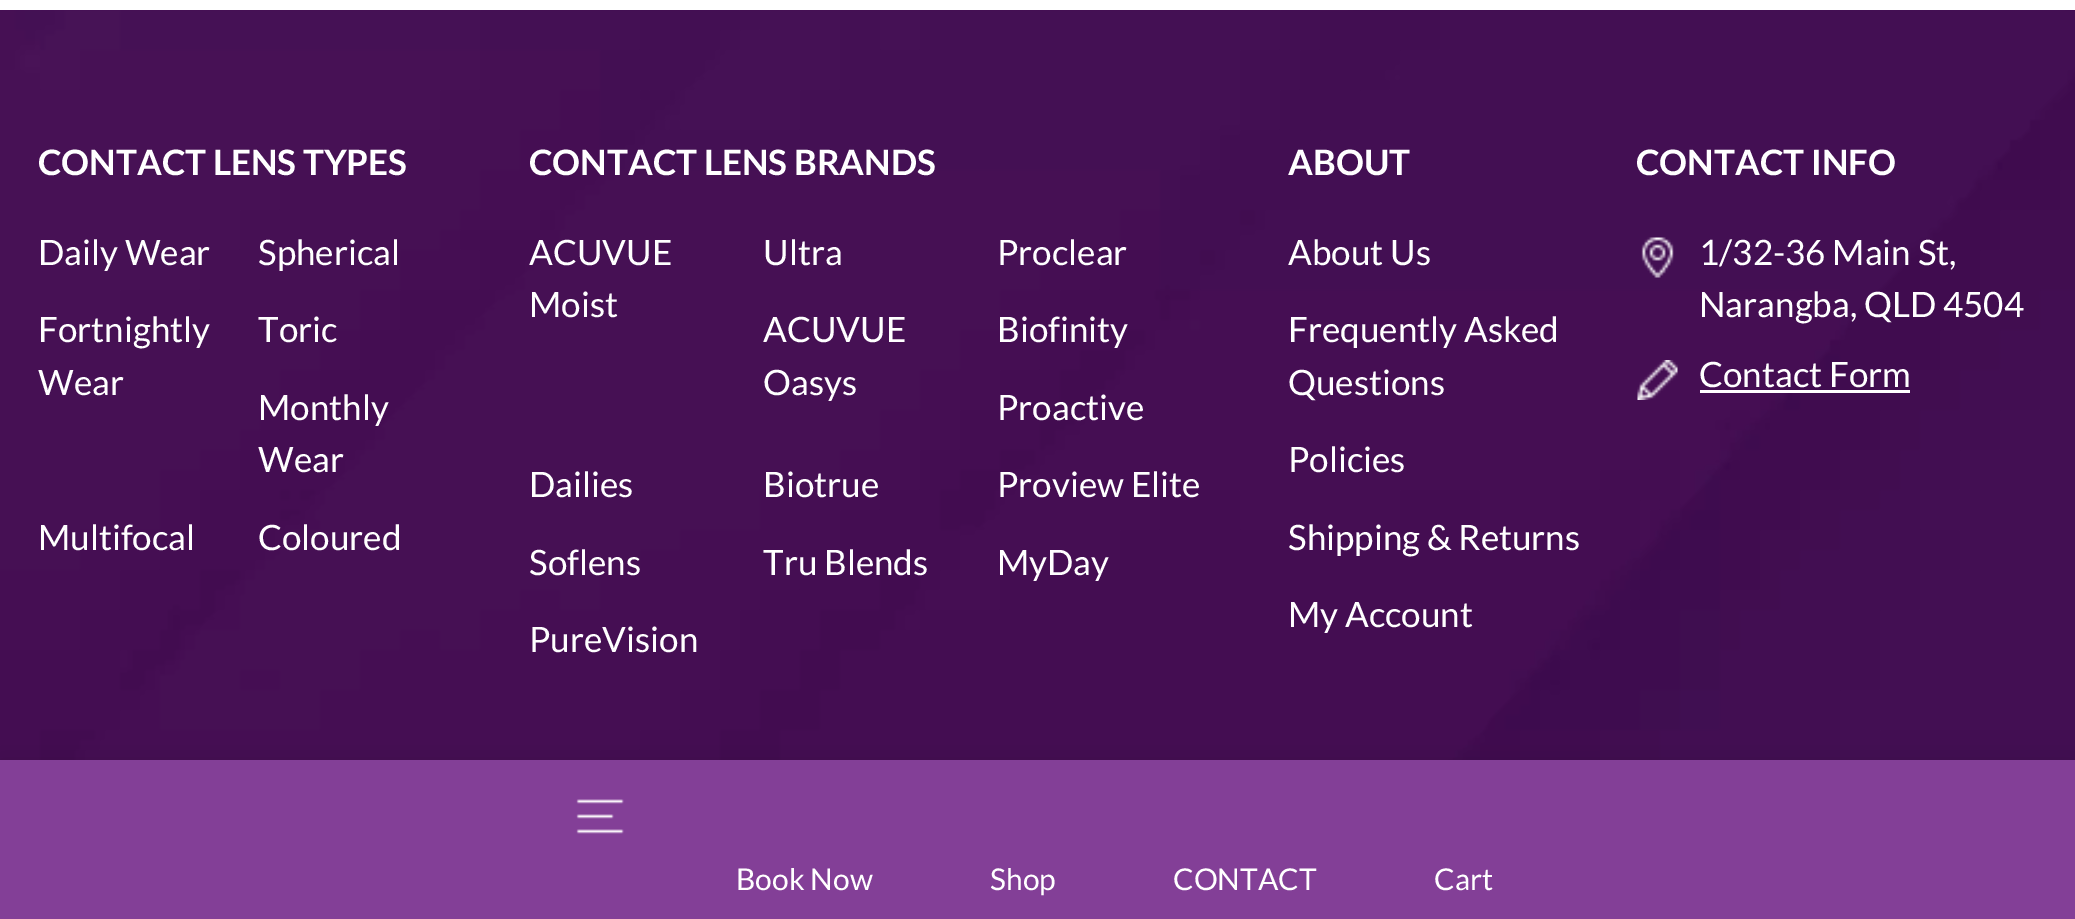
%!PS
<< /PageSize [2075 919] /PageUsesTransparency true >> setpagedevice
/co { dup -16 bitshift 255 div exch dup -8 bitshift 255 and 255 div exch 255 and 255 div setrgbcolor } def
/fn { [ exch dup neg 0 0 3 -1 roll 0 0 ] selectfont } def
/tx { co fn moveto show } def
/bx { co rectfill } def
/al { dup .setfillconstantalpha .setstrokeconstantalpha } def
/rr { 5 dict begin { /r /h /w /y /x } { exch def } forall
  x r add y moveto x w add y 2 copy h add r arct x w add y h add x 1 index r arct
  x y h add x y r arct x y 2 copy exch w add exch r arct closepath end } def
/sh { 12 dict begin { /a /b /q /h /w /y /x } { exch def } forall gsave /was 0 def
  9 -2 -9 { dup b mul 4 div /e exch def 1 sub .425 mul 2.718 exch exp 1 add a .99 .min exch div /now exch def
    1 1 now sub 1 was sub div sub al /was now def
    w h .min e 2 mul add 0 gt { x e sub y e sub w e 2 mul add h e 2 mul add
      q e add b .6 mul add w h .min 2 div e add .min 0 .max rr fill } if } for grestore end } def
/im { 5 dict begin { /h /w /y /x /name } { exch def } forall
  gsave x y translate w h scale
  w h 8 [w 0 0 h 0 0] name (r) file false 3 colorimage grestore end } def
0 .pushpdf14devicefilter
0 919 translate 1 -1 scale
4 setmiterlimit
0 0 2075 919 16#FFFFFF bx
(media/1.raw) 0 10 2075 750 im
(media/2.raw) 1641 237 33 41 im
(media/3.raw) 1637 360 41 40 im
1700 390 210 3 16#FFFFFF bx
16#000000 co
0 760 2075 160 0 12.5 .1 sh
0 760 2075 159 16#833F97 bx
(media/4.raw) 576 799 48 35 im
(CONTACT LENS TYPES) 38 175 /Lato-Bold 35 16#FFFFFF tx
(Daily Wear) 38 265 /Lato-Regular 35 16#FFFFFF tx
(Spherical) 258 265 /Lato-Regular 35 16#FFFFFF tx
(Fortnightly) 38 342 /Lato-Regular 35 16#FFFFFF tx
(Wear) 38 395 /Lato-Regular 35 16#FFFFFF tx
(Toric) 258 342 /Lato-Regular 35 16#FFFFFF tx
(Monthly) 258 420 /Lato-Regular 35 16#FFFFFF tx
(Wear) 258 472 /Lato-Regular 35 16#FFFFFF tx
(Multifocal) 38 550 /Lato-Regular 35 16#FFFFFF tx
(Coloured) 258 550 /Lato-Regular 35 16#FFFFFF tx
(CONTACT LENS BRANDS) 529 175 /Lato-Bold 35 16#FFFFFF tx
(ACUVUE) 529 265 /Lato-Regular 35 16#FFFFFF tx
(Moist) 529 317 /Lato-Regular 35 16#FFFFFF tx
(Ultra) 763 265 /Lato-Regular 35 16#FFFFFF tx
(Proclear) 997 265 /Lato-Regular 35 16#FFFFFF tx
(ACUVUE) 763 342 /Lato-Regular 35 16#FFFFFF tx
(Oasys) 763 395 /Lato-Regular 35 16#FFFFFF tx
(Biofinity) 997 342 /Lato-Regular 35 16#FFFFFF tx
(Proactive) 997 420 /Lato-Regular 35 16#FFFFFF tx
(Dailies) 529 497 /Lato-Regular 35 16#FFFFFF tx
(Biotrue) 763 497 /Lato-Regular 35 16#FFFFFF tx
(Proview Elite) 997 497 /Lato-Regular 35 16#FFFFFF tx
(Soflens) 529 575 /Lato-Regular 35 16#FFFFFF tx
(Tru Blends) 763 575 /Lato-Regular 35 16#FFFFFF tx
(MyDay) 997 575 /Lato-Regular 35 16#FFFFFF tx
(PureVision) 529 652 /Lato-Regular 35 16#FFFFFF tx
(ABOUT) 1288 175 /Lato-Bold 35 16#FFFFFF tx
(About Us) 1288 265 /Lato-Regular 35 16#FFFFFF tx
(Frequently Asked) 1288 342 /Lato-Regular 35 16#FFFFFF tx
(Questions) 1288 395 /Lato-Regular 35 16#FFFFFF tx
(Policies) 1288 472 /Lato-Regular 35 16#FFFFFF tx
(Shipping & Returns) 1288 550 /Lato-Regular 35 16#FFFFFF tx
(My Account) 1288 627 /Lato-Regular 35 16#FFFFFF tx
(CONTACT INFO) 1636 175 /Lato-Bold 35 16#FFFFFF tx
(1/32-36 Main St,) 1699 265 /Lato-Regular 35 16#FFFFFF tx
(Narangba, QLD 4504) 1699 317 /Lato-Regular 35 16#FFFFFF tx
(Contact Form) 1699 387 /Lato-Regular 35 16#FFFFFF tx
(Book Now) 736 890 /Lato-Regular 30 16#FFFFFF tx
(Shop) 990 890 /Lato-Regular 30 16#FFFFFF tx
(CONTACT) 1173 890 /Lato-Regular 30 16#FFFFFF tx
(Cart) 1434 890 /Lato-Regular 30 16#FFFFFF tx
.poppdf14devicefilter showpage
